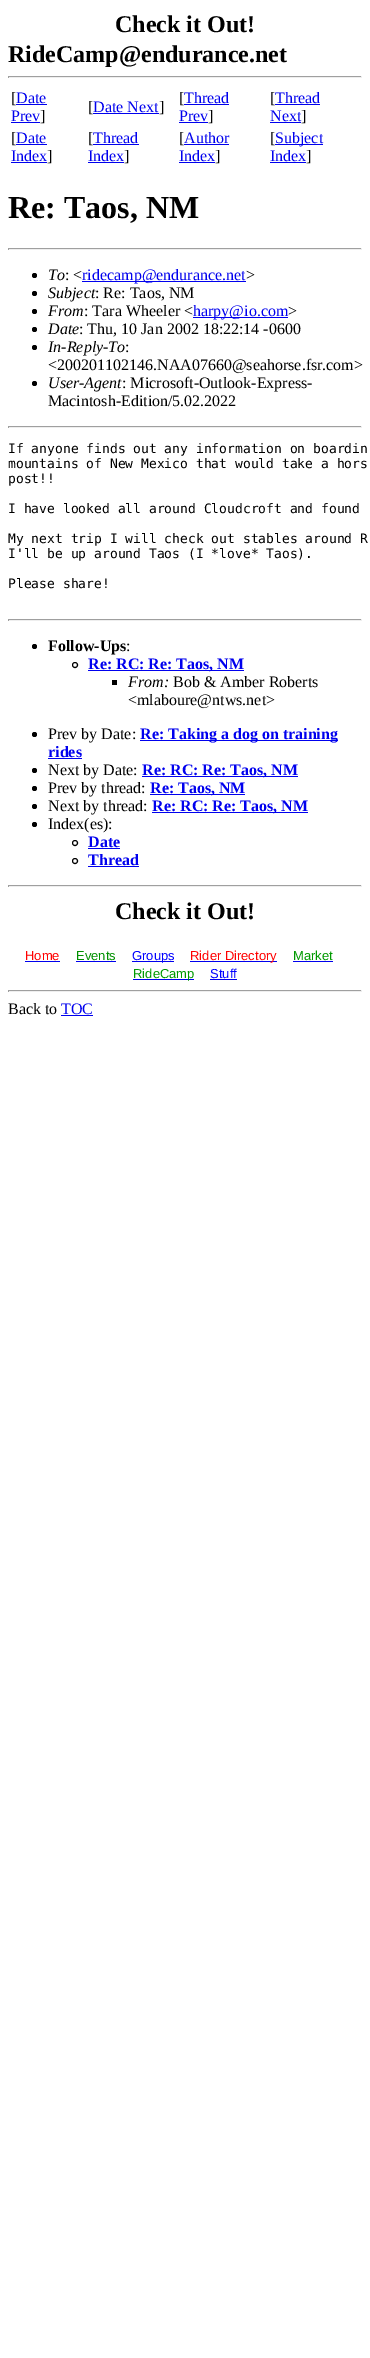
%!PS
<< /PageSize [370 2358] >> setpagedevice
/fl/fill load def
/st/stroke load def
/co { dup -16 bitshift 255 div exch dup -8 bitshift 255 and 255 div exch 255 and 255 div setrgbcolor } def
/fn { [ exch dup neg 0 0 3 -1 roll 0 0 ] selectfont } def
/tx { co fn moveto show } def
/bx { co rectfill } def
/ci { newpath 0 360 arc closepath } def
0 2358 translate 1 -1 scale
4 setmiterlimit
0 0 370 2358 16#FFFFFF bx
8 76 354 1 16#9F9F9F bx
361 76 1 2 16#EEEEEE bx
8 77 354 1 16#EEEEEE bx
8 76 1 2 16#9F9F9F bx
16 104 31 1 16#0000EE bx
11 122 29 1 16#0000EE bx
93 113 66 1 16#0000EE bx
184 104 45 1 16#0000EE bx
179 122 29 1 16#0000EE bx
275 104 45 1 16#0000EE bx
270 122 31 1 16#0000EE bx
16 144 31 1 16#0000EE bx
11 162 36 1 16#0000EE bx
93 144 46 1 16#0000EE bx
88 162 36 1 16#0000EE bx
184 144 45 1 16#0000EE bx
179 162 36 1 16#0000EE bx
275 144 48 1 16#0000EE bx
270 162 36 1 16#0000EE bx
8 248 354 1 16#9F9F9F bx
361 248 1 2 16#EEEEEE bx
8 249 354 1 16#EEEEEE bx
8 248 1 2 16#9F9F9F bx
16#000000 co
34.5 275.5 2.5 ci fl
82 281 164 1 16#0000EE bx
16#000000 co
34.5 293.5 2.5 ci fl
34.5 311.5 2.5 ci fl
193 317 95 1 16#0000EE bx
16#000000 co
34.5 329.5 2.5 ci fl
34.5 347.5 2.5 ci fl
34.5 383.5 2.5 ci fl
8 426 354 1 16#9F9F9F bx
361 426 1 2 16#EEEEEE bx
8 427 354 1 16#EEEEEE bx
8 426 1 2 16#9F9F9F bx
8 619 354 1 16#9F9F9F bx
361 619 1 2 16#EEEEEE bx
8 620 354 1 16#EEEEEE bx
8 619 1 2 16#9F9F9F bx
16#000000 co
34.5 646.5 2.5 ci fl
75 665 2.5 ci st
88 670 156 1 16#0000EE bx
112 680 5 5 16#000000 bx
34.5 734.5 2.5 ci fl
140 740 198 1 16#0000EE bx
48 758 34 1 16#0000EE bx
16#000000 co
34.5 770.5 2.5 ci fl
142 776 156 1 16#0000EE bx
16#000000 co
34.5 788.5 2.5 ci fl
150 794 95 1 16#0000EE bx
16#000000 co
34.5 806.5 2.5 ci fl
152 812 156 1 16#0000EE bx
16#000000 co
34.5 824.5 2.5 ci fl
75 843 2.5 ci st
88 848 32 1 16#0000EE bx
16#000000 co
75 861 2.5 ci st
88 866 51 1 16#0000EE bx
8 885 354 1 16#9F9F9F bx
361 885 1 2 16#EEEEEE bx
8 886 354 1 16#EEEEEE bx
8 885 1 2 16#9F9F9F bx
25 961 35 1 16#0000EE bx
76 961 40 1 16#0000EE bx
132 961 42 1 16#0000EE bx
190 961 87 1 16#0000EE bx
293 961 40 1 16#0000EE bx
133 979 61 1 16#0000EE bx
210 979 27 1 16#0000EE bx
8 990 354 1 16#9F9F9F bx
361 990 1 2 16#EEEEEE bx
8 991 354 1 16#EEEEEE bx
8 990 1 2 16#9F9F9F bx
61 1015 32 1 16#0000EE bx
(Check it Out!) 115 32 /LiberationSerif-Bold 24 16#000000 tx
(RideCamp@endurance.net) 8 62 /LiberationSerif-Bold 24 16#000000 tx
([) 11 103 /LiberationSerif-Regular 16 16#000000 tx
(Date) 16 103 /LiberationSerif-Regular 16 16#0000EE tx
(Prev) 11 121 /LiberationSerif-Regular 16 16#0000EE tx
(]) 40 121 /LiberationSerif-Regular 16 16#000000 tx
([) 88 112 /LiberationSerif-Regular 16 16#000000 tx
(Date Next) 93 112 /LiberationSerif-Regular 16 16#0000EE tx
(]) 159 112 /LiberationSerif-Regular 16 16#000000 tx
([) 179 103 /LiberationSerif-Regular 16 16#000000 tx
(Thread) 184 103 /LiberationSerif-Regular 16 16#0000EE tx
(Prev) 179 121 /LiberationSerif-Regular 16 16#0000EE tx
(]) 208 121 /LiberationSerif-Regular 16 16#000000 tx
([) 270 103 /LiberationSerif-Regular 16 16#000000 tx
(Thread) 275 103 /LiberationSerif-Regular 16 16#0000EE tx
(Next) 270 121 /LiberationSerif-Regular 16 16#0000EE tx
(]) 301 121 /LiberationSerif-Regular 16 16#000000 tx
([) 11 143 /LiberationSerif-Regular 16 16#000000 tx
(Date) 16 143 /LiberationSerif-Regular 16 16#0000EE tx
(Index) 11 161 /LiberationSerif-Regular 16 16#0000EE tx
(]) 47 161 /LiberationSerif-Regular 16 16#000000 tx
([) 88 143 /LiberationSerif-Regular 16 16#000000 tx
(Thread) 93 143 /LiberationSerif-Regular 16 16#0000EE tx
(Index) 88 161 /LiberationSerif-Regular 16 16#0000EE tx
(]) 124 161 /LiberationSerif-Regular 16 16#000000 tx
([) 179 143 /LiberationSerif-Regular 16 16#000000 tx
(Author) 184 143 /LiberationSerif-Regular 16 16#0000EE tx
(Index) 179 161 /LiberationSerif-Regular 16 16#0000EE tx
(]) 215 161 /LiberationSerif-Regular 16 16#000000 tx
([) 270 143 /LiberationSerif-Regular 16 16#000000 tx
(Subject) 275 143 /LiberationSerif-Regular 16 16#0000EE tx
(Index) 270 161 /LiberationSerif-Regular 16 16#0000EE tx
(]) 306 161 /LiberationSerif-Regular 16 16#000000 tx
(Re: Taos, NM) 8 218 /LiberationSerif-Bold 32 16#000000 tx
(To) 48 280 /LiberationSerif-Italic 16 16#000000 tx
(: <) 65 280 /LiberationSerif-Regular 16 16#000000 tx
(ridecamp@endurance.net) 82 280 /LiberationSerif-Regular 16 16#0000EE tx
(>) 246 280 /LiberationSerif-Regular 16 16#000000 tx
(Subject) 48 298 /LiberationSerif-Italic 16 16#000000 tx
(: Re: Taos, NM) 95 298 /LiberationSerif-Regular 16 16#000000 tx
(From) 48 316 /LiberationSerif-Italic 16 16#000000 tx
(: Tara Wheeler <) 84 316 /LiberationSerif-Regular 16 16#000000 tx
(harpy@io.com) 193 316 /LiberationSerif-Regular 16 16#0000EE tx
(>) 288 316 /LiberationSerif-Regular 16 16#000000 tx
(Date) 48 334 /LiberationSerif-Italic 16 16#000000 tx
(: Thu, 10 Jan 2002 18:22:14 -0600) 79 334 /LiberationSerif-Regular 16 16#000000 tx
(In-Reply-To) 48 352 /LiberationSerif-Italic 16 16#000000 tx
(:) 125 352 /LiberationSerif-Regular 16 16#000000 tx
(<200201102146.NAA07660@seahorse.fsr.com>) 48 370 /LiberationSerif-Regular 16 16#000000 tx
(User-Agent) 48 388 /LiberationSerif-Italic 16 16#000000 tx
(: Microsoft-Outlook-Express-) 122 388 /LiberationSerif-Regular 16 16#000000 tx
(Macintosh-Edition/5.02.2022) 48 406 /LiberationSerif-Regular 16 16#000000 tx
(If anyone finds out any information on boardin) 8 453 /DejaVuSansMono-Regular 13 16#000000 tx
(mountains of New Mexico that would take a hors) 8 468 /DejaVuSansMono-Regular 13 16#000000 tx
(post!!) 8 483 /DejaVuSansMono-Regular 13 16#000000 tx
(I have looked all around Cloudcroft and found) 8 513 /DejaVuSansMono-Regular 13 16#000000 tx
(My next trip I will check out stables around R) 8 543 /DejaVuSansMono-Regular 13 16#000000 tx
(I'll be up around Taos \(I *love* Taos\).) 8 558 /DejaVuSansMono-Regular 13 16#000000 tx
(Please share!) 8 588 /DejaVuSansMono-Regular 13 16#000000 tx
(Follow-Ups) 48 651 /LiberationSerif-Bold 16 16#000000 tx
(:) 126 651 /LiberationSerif-Regular 16 16#000000 tx
(Re: RC: Re: Taos, NM) 88 669 /LiberationSerif-Bold 16 16#0000EE tx
(From:) 128 687 /LiberationSerif-Italic 16 16#000000 tx
(Bob & Amber Roberts) 173 687 /LiberationSerif-Regular 16 16#000000 tx
(<mlaboure@ntws.net>) 128 705 /LiberationSerif-Regular 16 16#000000 tx
(Prev by Date:) 48 739 /LiberationSerif-Regular 16 16#000000 tx
(Re: Taking a dog on training) 140 739 /LiberationSerif-Bold 16 16#0000EE tx
(rides) 48 757 /LiberationSerif-Bold 16 16#0000EE tx
(Next by Date:) 48 775 /LiberationSerif-Regular 16 16#000000 tx
(Re: RC: Re: Taos, NM) 142 775 /LiberationSerif-Bold 16 16#0000EE tx
(Prev by thread:) 48 793 /LiberationSerif-Regular 16 16#000000 tx
(Re: Taos, NM) 150 793 /LiberationSerif-Bold 16 16#0000EE tx
(Next by thread:) 48 811 /LiberationSerif-Regular 16 16#000000 tx
(Re: RC: Re: Taos, NM) 152 811 /LiberationSerif-Bold 16 16#0000EE tx
(Index\(es\):) 48 829 /LiberationSerif-Regular 16 16#000000 tx
(Date) 88 847 /LiberationSerif-Bold 16 16#0000EE tx
(Thread) 88 865 /LiberationSerif-Bold 16 16#0000EE tx
(Check it Out!) 115 919 /LiberationSerif-Bold 24 16#000000 tx
(Home) 25 960 /LiberationSans-Regular 13 16#FF0000 tx
(Events) 76 960 /LiberationSans-Regular 13 16#009000 tx
(Groups) 132 960 /LiberationSans-Regular 13 16#0000FF tx
(Rider Directory) 190 960 /LiberationSans-Regular 13 16#FF0000 tx
(Market) 293 960 /LiberationSans-Regular 13 16#009900 tx
(RideCamp) 133 978 /LiberationSans-Regular 13 16#009900 tx
(Stuff) 210 978 /LiberationSans-Regular 13 16#0000FF tx
(Back to) 8 1014 /LiberationSerif-Regular 16 16#000000 tx
(TOC) 61 1014 /LiberationSerif-Regular 16 16#0000EE tx
showpage
